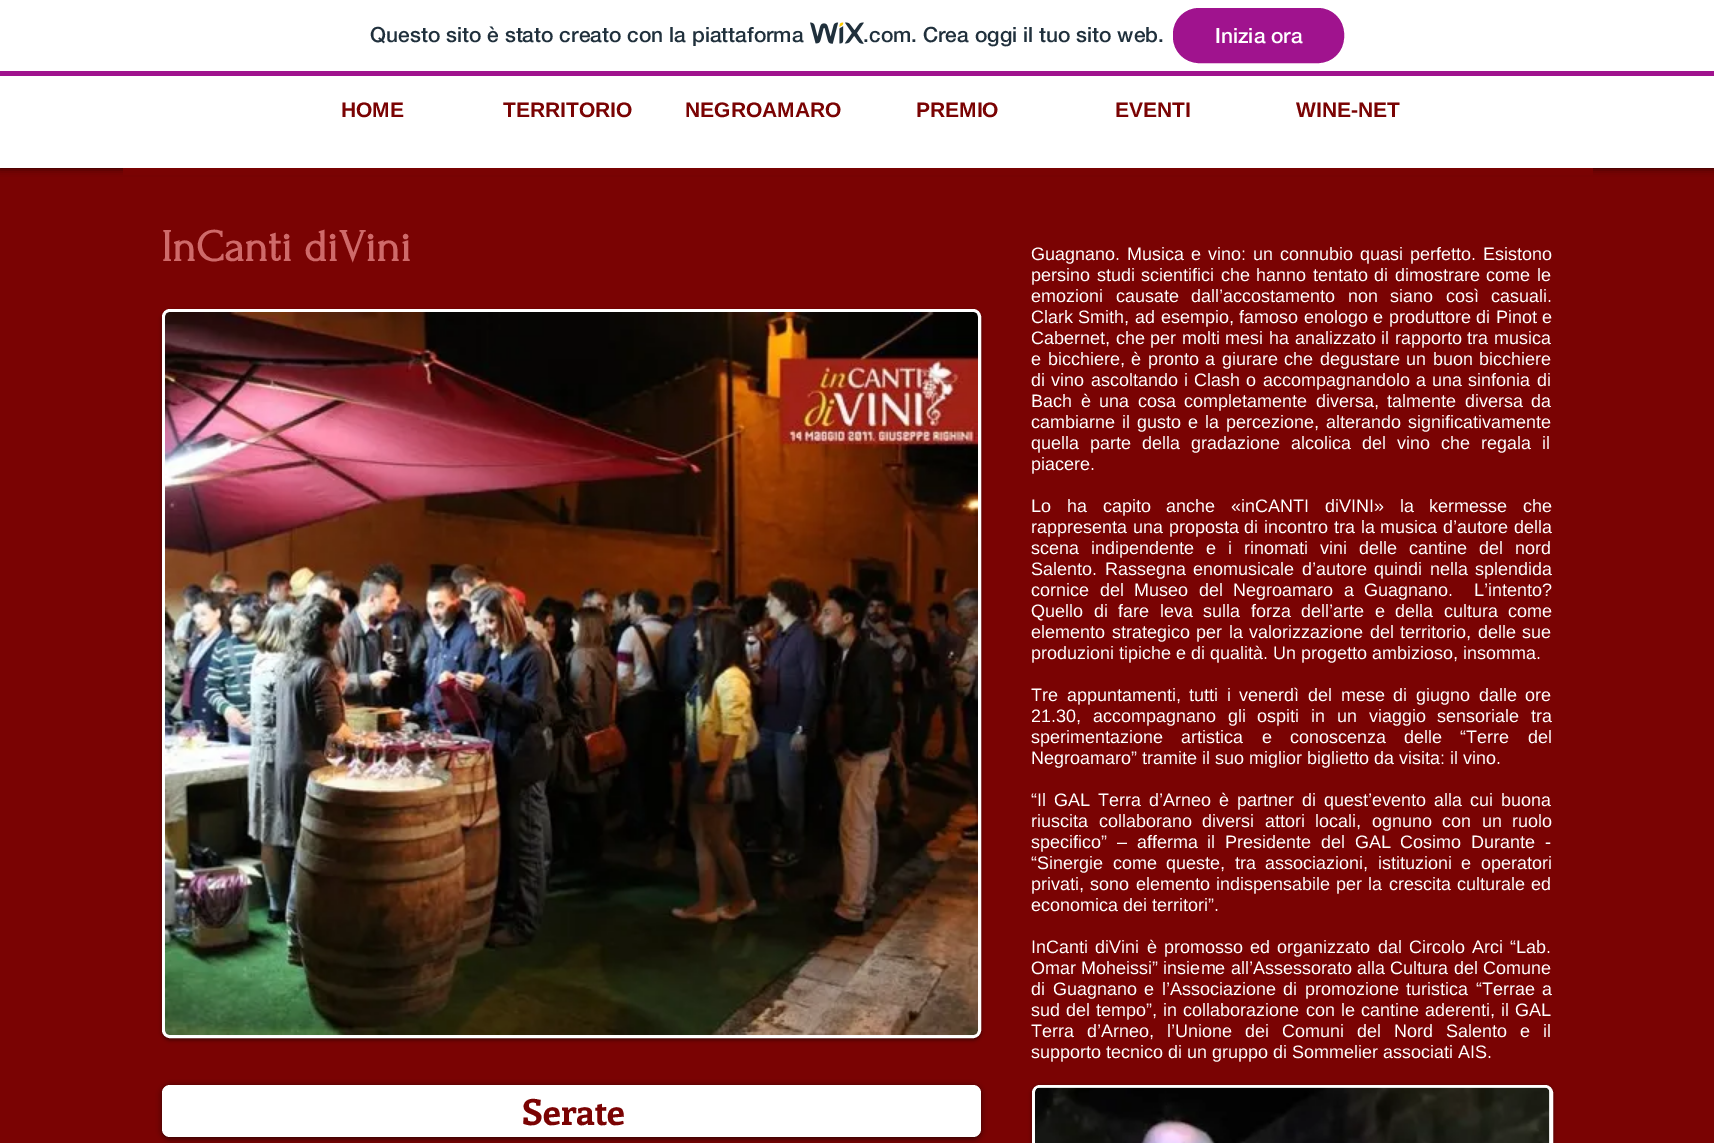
%!PS
<< /PageSize [1714 1143] /PageUsesTransparency true >> setpagedevice
/mt/moveto load def
/fl/fill load def
/st/stroke load def
/gs/gsave load def
/gr/grestore load def
/lw/setlinewidth load def
/co { dup -16 bitshift 255 div exch dup -8 bitshift 255 and 255 div exch 255 and 255 div setrgbcolor } def
/fn { [ exch dup neg 0 0 3 -1 roll 0 0 ] selectfont } def
/tx { co fn moveto show } def
/bx { co rectfill } def
/al { dup .setfillconstantalpha .setstrokeconstantalpha } def
/rr { 5 dict begin { /r /h /w /y /x } { exch def } forall
  x r add y moveto x w add y 2 copy h add r arct x w add y h add x 1 index r arct
  x y h add x y r arct x y 2 copy exch w add exch r arct closepath end } def
/sh { 12 dict begin { /a /b /q /h /w /y /x } { exch def } forall gsave /was 0 def
  9 -2 -9 { dup b mul 4 div /e exch def 1 sub .425 mul 2.718 exch exp 1 add a .99 .min exch div /now exch def
    1 1 now sub 1 was sub div sub al /was now def
    w h .min e 2 mul add 0 gt { x e sub y e sub w e 2 mul add h e 2 mul add
      q e add b .6 mul add w h .min 2 div e add .min 0 .max rr fill } if } for grestore end } def
/im { 5 dict begin { /h /w /y /x /name } { exch def } forall
  gsave x y translate w h scale
  w h 8 [w 0 0 h 0 0] name (r) file false 3 colorimage grestore end } def
0 .pushpdf14devicefilter
0 1143 translate 1 -1 scale
4 setmiterlimit
0 0 1714 1143 16#7A0303 bx
16#000000 co
0 75 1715 93 0 4 .7 sh
0 0 1714 71 16#FFFFFF bx
0 71 1714 5 16#A0138E bx
(media/1.raw) 810 22 54 22 im
1174 9 169 53 25 rr gs fl gr
2 lw
st
0 76 1714 92 16#FFFFFF bx
123 168 1470 7 16#7A0303 bx
16#000000 co
162 311 819 729 8 2 .5 sh
16#FFFFFF co
3 lw
163.5 310.5 816 726 6.5 rr st
(media/2.raw) 165 312 813 723 im
16#000000 co
162 1086 819 53 8 3 .6 sh
16#FFFFFF co
162 1085 819 52 8 rr fl
16#000000 co
1032 1086 521 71 8 2 .5 sh
16#FFFFFF co
1033.5 1086.5 518 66 6.5 rr gs fl gr
st
(media/3.raw) 1035 1087 515 56 im
(Questo sito è stato creato con la piattaforma) 370 42 /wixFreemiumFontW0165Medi-Medium 21 16#20303C tx
(.com. Crea oggi il tuo sito web.) 863 42 /wixFreemiumFontW0165Medi-Medium 21 16#20303C tx
(Inizia ora) 1215 43 /wixFreemiumFontW0165Medi-Medium 21 16#FFFFFF tx
(HOME) 341 117 /LiberationSans-Bold 21 16#7A0303 tx
(TERRITORIO) 503 117 /LiberationSans-Bold 21 16#7A0303 tx
(NEGROAMARO) 685 117 /LiberationSans-Bold 21 16#7A0303 tx
(PREMIO) 916 117 /LiberationSans-Bold 21 16#7A0303 tx
(EVENTI) 1115 117 /LiberationSans-Bold 21 16#7A0303 tx
(WINE-NET) 1296 117 /LiberationSans-Bold 21 16#7A0303 tx
(InCanti diVini) 161 261 /Forum-Bold 45 16#CF6A6A tx
/LiberationSans-Regular 18 fn
16#FFFFFF co
1031 260 mt 2 0 32 (Guagnano. Musica e vino: un connubio quasi perfetto. Esistono) widthshow
1031 281 mt 1.5 0 32 (persino studi scientifici che hanno tentato di dimostrare come le) widthshow
1031 302 mt 7.5 0 32 (emozioni causate dall’accostamento non siano così casuali.) widthshow
1031 323 mt .5 0 32 (Clark Smith, ad esempio, famoso enologo e produttore di Pinot e) widthshow
1031 344 mt .6 0 32 (Cabernet, che per molti mesi ha analizzato il rapporto tra musica) widthshow
1031 365 mt 1.5 0 32 (e bicchiere, è pronto a giurare che degustare un buon bicchiere) widthshow
1031 386 mt 1.25 0 32 (di vino ascoltando i Clash o accompagnandolo a una sinfonia di) widthshow
1031 407 mt 3.5 0 32 (Bach è una cosa completamente diversa, talmente diversa da) widthshow
1031 428 mt 2 0 32 (cambiarne il gusto e la percezione, alterando significativamente) widthshow
1031 449 mt 6 0 32 (quella parte della gradazione alcolica del vino che regala il) widthshow
(piacere.) 1031 470 /LiberationSans-Regular 18 16#FFFFFF tx
1031 512 mt 10.75 0 32 (Lo ha capito anche «inCANTI diVINI» la kermesse che) widthshow
1031 533 mt .75 0 32 (rappresenta una proposta di incontro tra la musica d’autore della) widthshow
1031 554 mt 7 0 32 (scena indipendente e i rinomati vini delle cantine del nord) widthshow
1031 575 mt 2.5 0 32 (Salento. Rassegna enomusicale d’autore quindi nella splendida) widthshow
1031 596 mt 5.5 0 32 (cornice del Museo del Negroamaro a Guagnano.  L’intento?) widthshow
1031 617 mt 5.5 0 32 (Quello di fare leva sulla forza dell’arte e della cultura come) widthshow
1031 638 mt 1.5 0 32 (elemento strategico per la valorizzazione del territorio, delle sue) widthshow
(produzioni tipiche e di qualità. Un progetto ambizioso, insomma.) 1031 659 /LiberationSans-Regular 18 16#FFFFFF tx
1031 701 mt 3.6 0 32 (Tre appuntamenti, tutti i venerdì del mese di giugno dalle ore) widthshow
1031 722 mt 6.75 0 32 (21.30, accompagnano gli ospiti in un viaggio sensoriale tra) widthshow
1031 743 mt 13.25 0 32 (sperimentazione artistica e conoscenza delle “Terre del) widthshow
(Negroamaro” tramite il suo miglior biglietto da visita: il vino.) 1031 764 /LiberationSans-Regular 18 16#FFFFFF tx
1031 806 mt 3 0 32 (“Il GAL Terra d’Arneo è partner di quest’evento alla cui buona) widthshow
1031 827 mt 5.5 0 32 (riuscita collaborano diversi attori locali, ognuno con un ruolo) widthshow
1031 848 mt 4.75 0 32 (specifico” – afferma il Presidente del GAL Cosimo Durante -) widthshow
1031 869 mt 4.5 0 32 (“Sinergie come queste, tra associazioni, istituzioni e operatori) widthshow
1031 890 mt 1.25 0 32 (privati, sono elemento indispensabile per la crescita culturale ed) widthshow
(economica dei territori”.) 1031 911 /LiberationSans-Regular 18 16#FFFFFF tx
1031 953 mt 2.25 0 32 (InCanti diVini è promosso ed organizzato dal Circolo Arci “Lab.) widthshow
1031 974 mt .25 0 32 (Omar Moheissi” insieme all’Assessorato alla Cultura del Comune) widthshow
1031 995 mt 2.5 0 32 (di Guagnano e l’Associazione di promozione turistica “Terrae a) widthshow
1031 1016 mt 1.1 0 32 (sud del tempo”, in collaborazione con le cantine aderenti, il GAL) widthshow
1031 1037 mt 8 0 32 (Terra d’Arneo, l’Unione dei Comuni del Nord Salento e il) widthshow
(supporto tecnico di un gruppo di Sommelier associati AIS.) 1031 1058 /LiberationSans-Regular 18 16#FFFFFF tx
(Serate) 522 1125 /Enriqueta-Bold 36 16#7A0303 tx
.poppdf14devicefilter showpage
